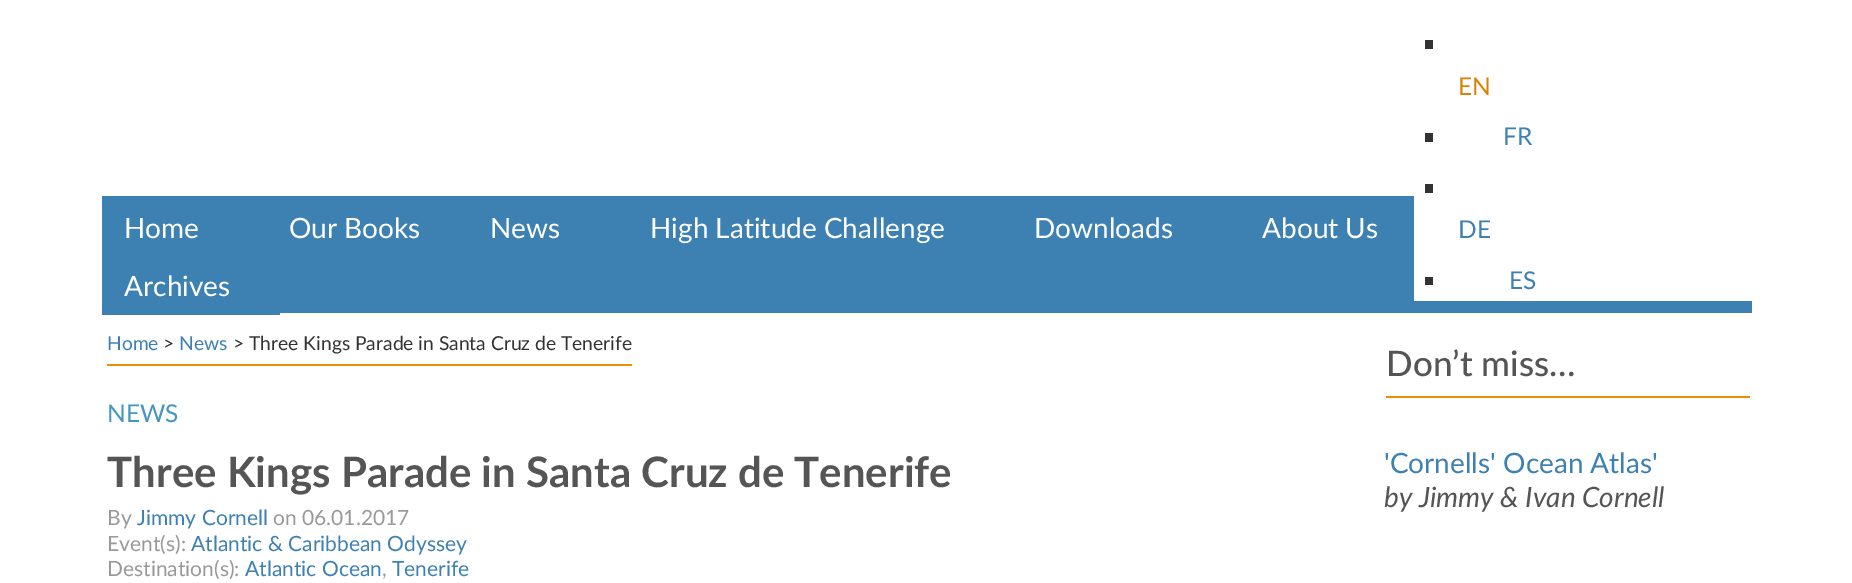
%!PS
<< /PageSize [1852 583] >> setpagedevice
/co { dup -16 bitshift 255 div exch dup -8 bitshift 255 and 255 div exch 255 and 255 div setrgbcolor } def
/fn { [ exch dup neg 0 0 3 -1 roll 0 0 ] selectfont } def
/tx { co fn moveto show } def
/bx { co rectfill } def
0 583 translate 1 -1 scale
4 setmiterlimit
0 0 1852 583 16#FFFFFF bx
280 257 1472 56 16#3D80B2 bx
102 196 164 58 16#3D80B2 bx
266 196 1148 61 16#3D80B2 bx
102 254 178 61 16#3D80B2 bx
1414 257 338 44 16#FFFFFF bx
1425 40 8 9 16#333333 bx
1425 133 8 9 16#333333 bx
1425 184 8 9 16#333333 bx
1425 277 8 8 16#333333 bx
107 364 525 2 16#F18E00 bx
1386 396 364 2 16#F18E00 bx
(Home) 124 238 /Lato-Regular 28 16#FFFFFF tx
(Our Books) 289 238 /Lato-Regular 28 16#FFFFFF tx
(News) 490 238 /Lato-Regular 28 16#FFFFFF tx
(High Latitude Challenge) 650 238 /Lato-Regular 28 16#FFFFFF tx
(Downloads) 1034 238 /Lato-Regular 28 16#FFFFFF tx
(About Us) 1262 238 /Lato-Regular 28 16#FFFFFF tx
(Archives) 124 296 /Lato-Regular 28 16#FFFFFF tx
(EN) 1458 95 /Lato-Regular 24.5 16#DB8202 tx
(FR) 1503 145 /Lato-Regular 24.5 16#3D80B2 tx
(DE) 1458 238 /Lato-Regular 24.5 16#3D80B2 tx
(ES) 1509 289 /Lato-Regular 24.5 16#3D80B2 tx
(Home) 107 350 /Lato-Regular 19.25 16#3D80B2 tx
(>) 163 350 /Lato-Regular 19.25 16#333333 tx
(News) 179 350 /Lato-Regular 19.25 16#3D80B2 tx
(> Three Kings Parade in Santa Cruz de Tenerife) 233 350 /Lato-Regular 19.25 16#333333 tx
(NEWS) 107 422 /Lato-Regular 24.5 16#4397BF tx
(Three Kings Parade in Santa Cruz de Tenerife) 107 487 /Lato-Bold 42 16#555555 tx
(By) 107 525 /Lato-Regular 21 16#999999 tx
(Jimmy Cornell) 137 525 /Lato-Regular 21 16#3D80B2 tx
(on 06.01.2017) 273 525 /Lato-Regular 21 16#999999 tx
(Event\(s\):) 107 551 /Lato-Regular 21 16#999999 tx
(Atlantic & Caribbean Odyssey) 191 551 /Lato-Regular 21 16#3D80B2 tx
(Destination\(s\):) 107 576 /Lato-Regular 21 16#999999 tx
(Atlantic Ocean) 245 576 /Lato-Regular 21 16#3D80B2 tx
(,) 382 576 /Lato-Regular 21 16#999999 tx
(Tenerife) 392 576 /Lato-Regular 21 16#3D80B2 tx
(Don’t miss…) 1386 376 /Lato-Medium 35 16#555555 tx
('Cornells' Ocean Atlas') 1384 473 /Lato-Regular 28 16#3D80B2 tx
(by Jimmy & Ivan Cornell) 1384 507 /Lato-Italic 28 16#555555 tx
showpage
